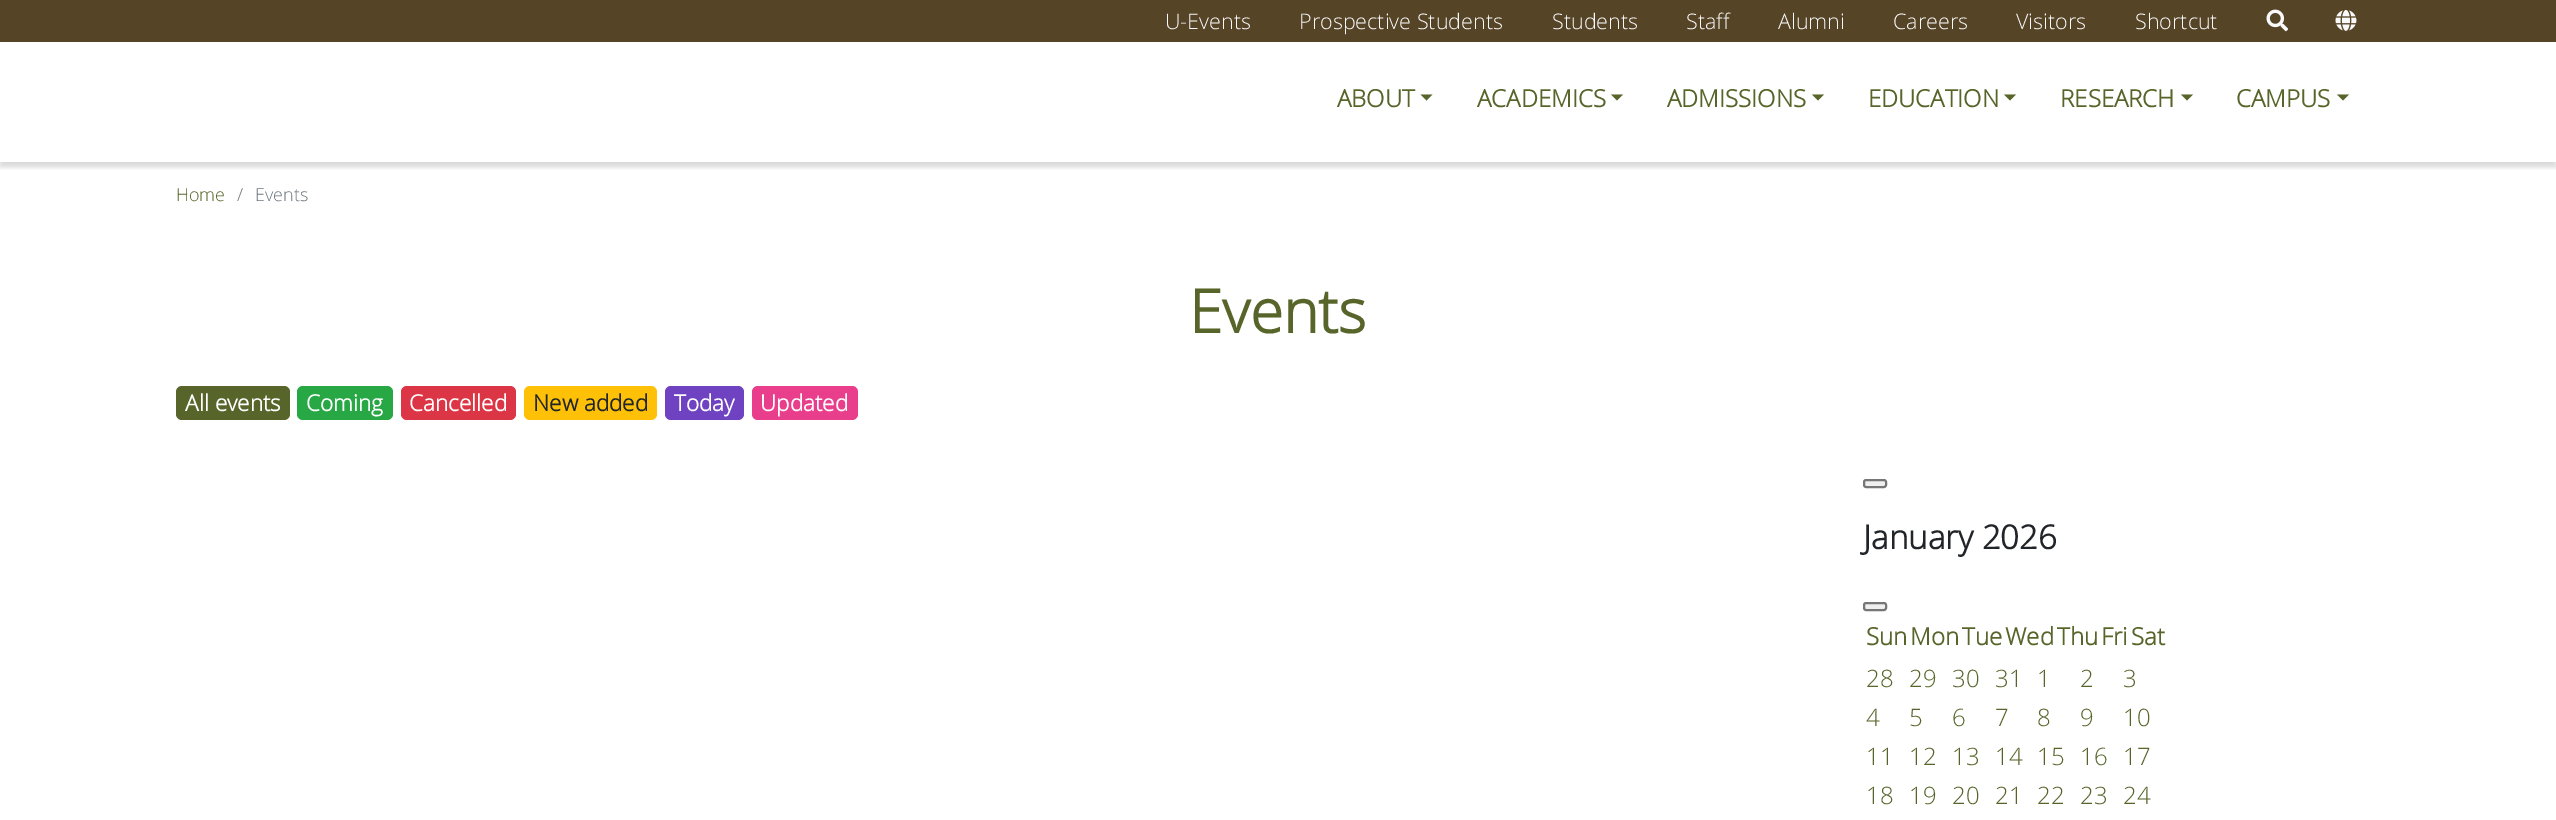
%!PS
<< /PageSize [2556 820] /PageUsesTransparency true >> setpagedevice
/mt/moveto load def
/li/lineto load def
/cp/closepath load def
/fl/fill load def
/st/stroke load def
/gs/gsave load def
/gr/grestore load def
/lw/setlinewidth load def
/co { dup -16 bitshift 255 div exch dup -8 bitshift 255 and 255 div exch 255 and 255 div setrgbcolor } def
/fn { [ exch dup neg 0 0 3 -1 roll 0 0 ] selectfont } def
/tx { co fn moveto show } def
/bx { co rectfill } def
/al { dup .setfillconstantalpha .setstrokeconstantalpha } def
/rr { 5 dict begin { /r /h /w /y /x } { exch def } forall
  x r add y moveto x w add y 2 copy h add r arct x w add y h add x 1 index r arct
  x y h add x y r arct x y 2 copy exch w add exch r arct closepath end } def
/sh { 12 dict begin { /a /b /q /h /w /y /x } { exch def } forall gsave /was 0 def
  9 -2 -9 { dup b mul 4 div /e exch def 1 sub .425 mul 2.718 exch exp 1 add a .99 .min exch div /now exch def
    1 1 now sub 1 was sub div sub al /was now def
    w h .min e 2 mul add 0 gt { x e sub y e sub w e 2 mul add h e 2 mul add
      q e add b .6 mul add w h .min 2 div e add .min 0 .max rr fill } if } for grestore end } def
/im { 5 dict begin { /h /w /y /x /name } { exch def } forall
  gsave x y translate w h scale
  w h 8 [w 0 0 h 0 0] name (r) file false 3 colorimage grestore end } def
0 .pushpdf14devicefilter
0 820 translate 1 -1 scale
4 setmiterlimit
0 0 2556 820 16#FFFFFF bx
0 0 2556 42 16#564427 bx
(media/1.raw) 2266 9 23 23 im
(media/2.raw) 2335 10 22 21 im
gs
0 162 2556 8 rectclip
16#000000 co
0 47 2556 120 0 2.5 .15 sh
gr
16#57652A co
1420.5 94.5 mt 1432.5 94.5 li 1426.5 100.5 li cp fl
1611 94.5 mt 1623 94.5 li 1617 100.5 li cp fl
1812 94.5 mt 1824 94.5 li 1818 100.5 li cp fl
2004 94.5 mt 2016 94.5 li 2010 100.5 li cp fl
2181 94.5 mt 2193 94.5 li 2187 100.5 li cp fl
2337 94.5 mt 2349 94.5 li 2343 100.5 li cp fl
176 386 114 34 6 rr fl
16#28A745 co
297 386 96 34 6 rr fl
16#DC3545 co
401 386 115 34 6 rr fl
16#FFC107 co
524 386 133 34 6 rr fl
16#6F42C1 co
665 386 79 34 6 rr fl
16#E83E8C co
752 386 106 34 6 rr fl
16#EFEFEF co
1864 480 22 7 2 rr gs fl gr
16#767676 co
2 lw
st
16#EFEFEF co
1864 603 22 7 2 rr gs fl gr
16#767676 co
st
(U-Events) 1165 29 /OpenSans-Light 21.5 16#F8F9FA tx
(Prospective Students) 1299 29 /OpenSans-Light 21.5 16#F8F9FA tx
(Students) 1552 29 /OpenSans-Light 21.5 16#F8F9FA tx
(Staff) 1686 29 /OpenSans-Light 21.5 16#F8F9FA tx
(Alumni) 1778 29 /OpenSans-Light 21.5 16#F8F9FA tx
(Careers) 1893 29 /OpenSans-Light 21.5 16#F8F9FA tx
(Visitors) 2016 29 /OpenSans-Light 21.5 16#F8F9FA tx
(Shortcut) 2135 29 /OpenSans-Light 21.5 16#F8F9FA tx
(ABOUT) 1337 107 /OpenSans-Bold 24 16#57652A tx
(ACADEMICS) 1477 107 /OpenSans-Bold 24 16#57652A tx
(ADMISSIONS) 1667 107 /OpenSans-Bold 24 16#57652A tx
(EDUCATION) 1868 107 /OpenSans-Bold 24 16#57652A tx
(RESEARCH) 2060 107 /OpenSans-Bold 24 16#57652A tx
(CAMPUS) 2236 107 /OpenSans-Bold 24 16#57652A tx
(Home) 176 201 /OpenSans-Light 18 16#57652A tx
(/) 237 201 /OpenSans-Light 18 16#6C757D tx
(Events) 255 201 /OpenSans-Light 18 16#6C757D tx
(Events) 1189 333 /OpenSans-Bold 60 16#57652A tx
(All events) 185 411 /OpenSans-Bold 22.5 16#FFFFFF tx
(Coming) 306 411 /OpenSans-Bold 22.5 16#FFFFFF tx
(Cancelled) 409 411 /OpenSans-Bold 22.5 16#FFFFFF tx
(New added) 533 411 /OpenSans-Bold 22.5 16#212529 tx
(Today) 674 411 /OpenSans-Bold 22.5 16#FFFFFF tx
(Updated) 760 411 /OpenSans-Bold 22.5 16#FFFFFF tx
(January 2026) 1863 549 /OpenSans-Bold 33 16#212529 tx
(Sun) 1866 645 /OpenSans-Bold 24 16#57652A tx
(Mon) 1910 645 /OpenSans-Bold 24 16#57652A tx
(Tue) 1962 645 /OpenSans-Bold 24 16#57652A tx
(Wed) 2005 645 /OpenSans-Bold 24 16#57652A tx
(Thu) 2057 645 /OpenSans-Bold 24 16#57652A tx
(Fri) 2101 645 /OpenSans-Bold 24 16#57652A tx
(Sat) 2131 645 /OpenSans-Bold 24 16#57652A tx
(28) 1866 687 /OpenSans-Light 24 16#57652A tx
(29) 1909 687 /OpenSans-Light 24 16#57652A tx
(30) 1952 687 /OpenSans-Light 24 16#57652A tx
(31) 1995 687 /OpenSans-Light 24 16#57652A tx
(1) 2037 687 /OpenSans-Light 24 16#57652A tx
(2) 2080 687 /OpenSans-Light 24 16#57652A tx
(3) 2123 687 /OpenSans-Light 24 16#57652A tx
(4) 1866 726 /OpenSans-Light 24 16#57652A tx
(5) 1909 726 /OpenSans-Light 24 16#57652A tx
(6) 1952 726 /OpenSans-Light 24 16#57652A tx
(7) 1995 726 /OpenSans-Light 24 16#57652A tx
(8) 2037 726 /OpenSans-Light 24 16#57652A tx
(9) 2080 726 /OpenSans-Light 24 16#57652A tx
(10) 2123 726 /OpenSans-Light 24 16#57652A tx
(11) 1866 765 /OpenSans-Light 24 16#57652A tx
(12) 1909 765 /OpenSans-Light 24 16#57652A tx
(13) 1952 765 /OpenSans-Light 24 16#57652A tx
(14) 1995 765 /OpenSans-Light 24 16#57652A tx
(15) 2037 765 /OpenSans-Light 24 16#57652A tx
(16) 2080 765 /OpenSans-Light 24 16#57652A tx
(17) 2123 765 /OpenSans-Light 24 16#57652A tx
(18) 1866 804 /OpenSans-Light 24 16#57652A tx
(19) 1909 804 /OpenSans-Light 24 16#57652A tx
(20) 1952 804 /OpenSans-Light 24 16#57652A tx
(21) 1995 804 /OpenSans-Light 24 16#57652A tx
(22) 2037 804 /OpenSans-Light 24 16#57652A tx
(23) 2080 804 /OpenSans-Light 24 16#57652A tx
(24) 2123 804 /OpenSans-Light 24 16#57652A tx
.poppdf14devicefilter showpage
